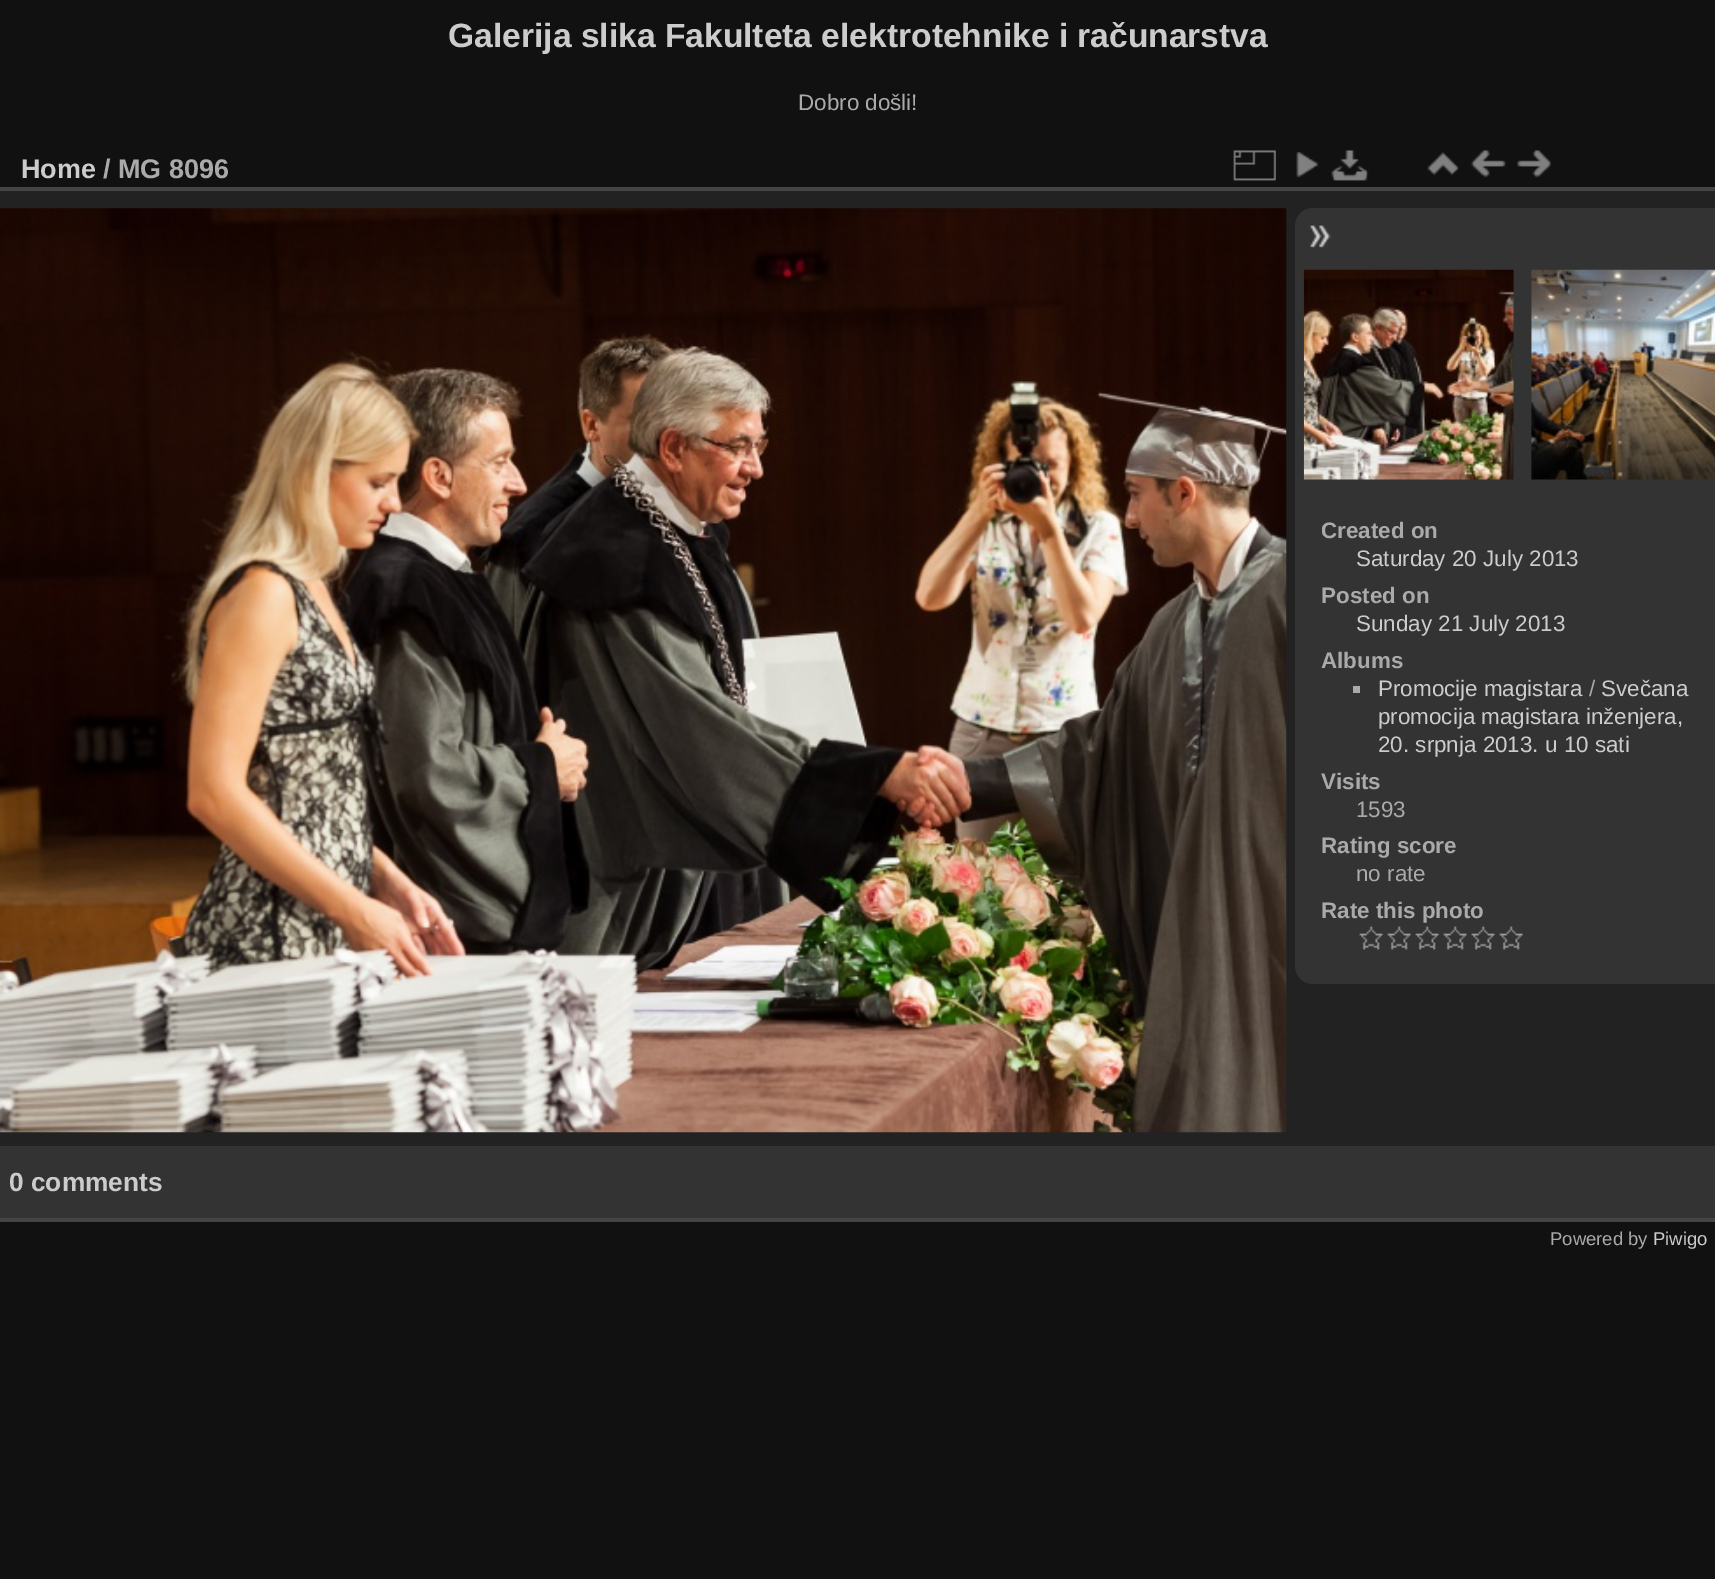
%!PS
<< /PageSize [1715 1579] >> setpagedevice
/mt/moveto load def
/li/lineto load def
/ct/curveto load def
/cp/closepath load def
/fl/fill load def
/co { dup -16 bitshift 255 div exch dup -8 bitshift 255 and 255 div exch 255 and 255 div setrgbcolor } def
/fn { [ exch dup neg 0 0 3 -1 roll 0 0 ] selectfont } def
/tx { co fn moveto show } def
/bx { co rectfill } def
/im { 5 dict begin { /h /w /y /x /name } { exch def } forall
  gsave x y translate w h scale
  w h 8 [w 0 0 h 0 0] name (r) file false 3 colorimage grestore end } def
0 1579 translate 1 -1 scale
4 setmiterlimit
0 0 1715 1579 16#111111 bx
0 191 1715 955 16#222222 bx
0 1218 1715 4 16#444444 bx
0 187 1715 4 16#444444 bx
(media/1.raw) 1233 150 43 31 im
(media/2.raw) 1296 151 23 27 im
(media/3.raw) 1331 150 38 31 im
(media/4.raw) 1427 152 32 24 im
(media/5.raw) 1471 150 35 28 im
(media/6.raw) 1517 150 34 28 im
(media/7.raw) 0 208 1287 925 im
16#333333 co
1313 208 mt 1715 208 li 1715 984 li 1313 984 li 1303 984 1295 976 1295 966 ct 1295 226 li 1295 216 1303 208 1313 208 ct cp fl
(media/8.raw) 1310 225 21 23 im
(media/9.raw) 1303 269 211 211 im
(media/10.raw) 1531 269 184 211 im
1353 686 7 7 16#AAAAAA bx
(media/11.raw) 1359 926 24 24 im
(media/12.raw) 1387 926 24 24 im
(media/12.raw) 1415 926 24 24 im
(media/11.raw) 1443 926 24 24 im
(media/11.raw) 1471 926 24 24 im
(media/12.raw) 1499 926 24 24 im
0 1146 1715 72 16#333333 bx
(Galerija slika Fakulteta elektrotehnike i računarstva) 448 47 /LiberationSans-Bold 33.6 16#CCCCCC tx
(Dobro došli!) 798 110 /LiberationSans-Regular 22.4 16#AAAAAA tx
(Home) 21 178 /LiberationSans-Bold 27 16#CCCCCC tx
(/ MG 8096) 103 178 /LiberationSans-Bold 27 16#AAAAAA tx
(Created on) 1321 538 /LiberationSans-Bold 22.4 16#AAAAAA tx
(Saturday 20 July 2013) 1356 566 /LiberationSans-Regular 22.4 16#CCCCCC tx
(Posted on) 1321 603 /LiberationSans-Bold 22.4 16#AAAAAA tx
(Sunday 21 July 2013) 1356 631 /LiberationSans-Regular 22.4 16#CCCCCC tx
(Albums) 1321 668 /LiberationSans-Bold 22.4 16#AAAAAA tx
(Promocije magistara) 1378 696 /LiberationSans-Regular 22.4 16#CCCCCC tx
(/) 1589 696 /LiberationSans-Regular 22.4 16#AAAAAA tx
(Svečana) 1601 696 /LiberationSans-Regular 22.4 16#CCCCCC tx
(promocija magistara inženjera,) 1378 724 /LiberationSans-Regular 22.4 16#CCCCCC tx
(20. srpnja 2013. u 10 sati) 1378 752 /LiberationSans-Regular 22.4 16#CCCCCC tx
(Visits) 1321 789 /LiberationSans-Bold 22.4 16#AAAAAA tx
(1593) 1356 817 /LiberationSans-Regular 22.4 16#AAAAAA tx
(Rating score) 1321 853 /LiberationSans-Bold 22.4 16#AAAAAA tx
(no rate) 1356 881 /LiberationSans-Regular 22.4 16#AAAAAA tx
(Rate this photo) 1321 918 /LiberationSans-Bold 22.4 16#AAAAAA tx
(0 comments) 9 1191 /LiberationSans-Bold 26.25 16#CCCCCC tx
(Powered by) 1550 1245 /LiberationSans-Regular 18.5 16#AAAAAA tx
(Piwigo) 1653 1245 /LiberationSans-Regular 18.5 16#CCCCCC tx
showpage
